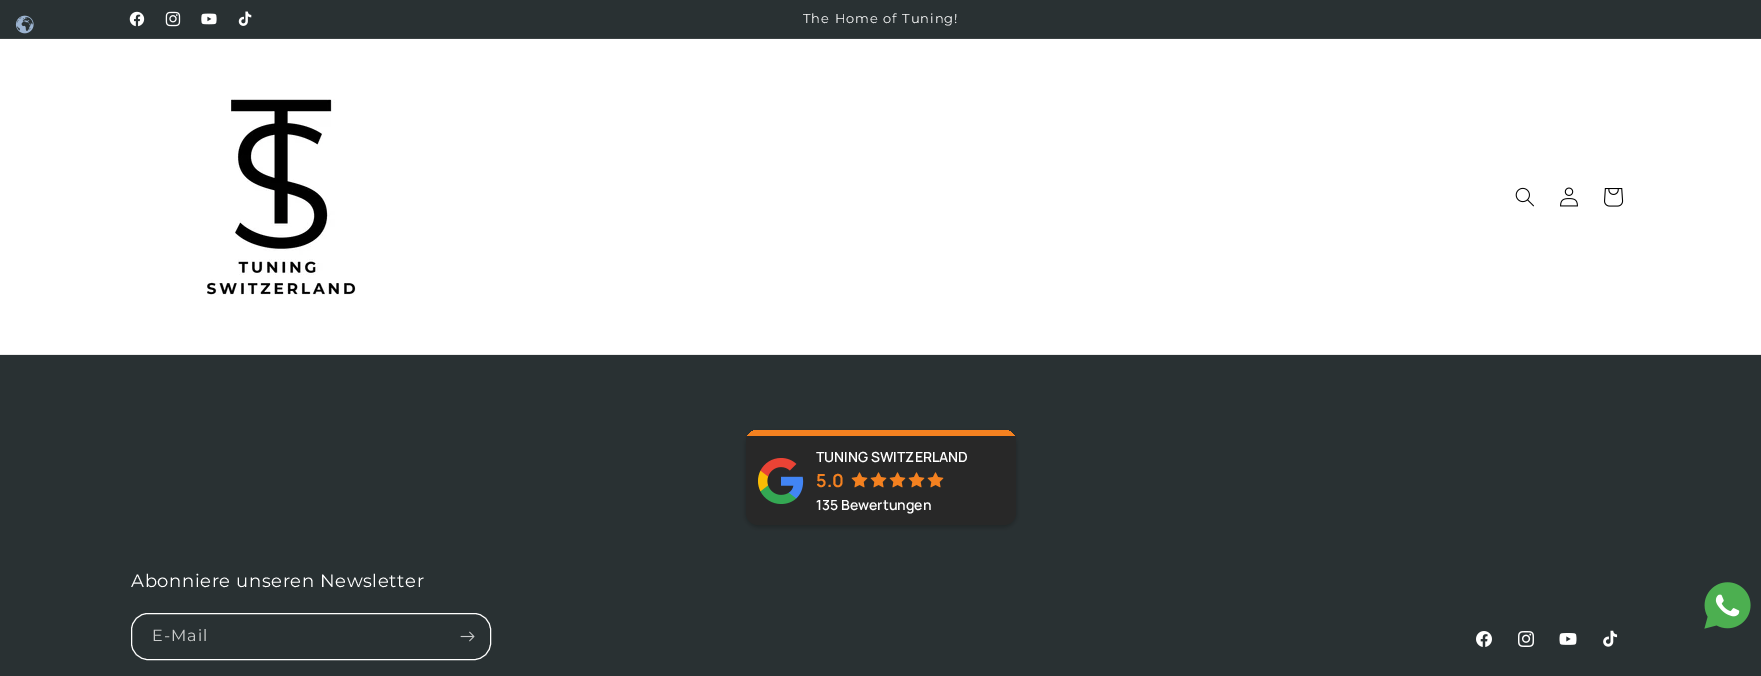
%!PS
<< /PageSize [1761 676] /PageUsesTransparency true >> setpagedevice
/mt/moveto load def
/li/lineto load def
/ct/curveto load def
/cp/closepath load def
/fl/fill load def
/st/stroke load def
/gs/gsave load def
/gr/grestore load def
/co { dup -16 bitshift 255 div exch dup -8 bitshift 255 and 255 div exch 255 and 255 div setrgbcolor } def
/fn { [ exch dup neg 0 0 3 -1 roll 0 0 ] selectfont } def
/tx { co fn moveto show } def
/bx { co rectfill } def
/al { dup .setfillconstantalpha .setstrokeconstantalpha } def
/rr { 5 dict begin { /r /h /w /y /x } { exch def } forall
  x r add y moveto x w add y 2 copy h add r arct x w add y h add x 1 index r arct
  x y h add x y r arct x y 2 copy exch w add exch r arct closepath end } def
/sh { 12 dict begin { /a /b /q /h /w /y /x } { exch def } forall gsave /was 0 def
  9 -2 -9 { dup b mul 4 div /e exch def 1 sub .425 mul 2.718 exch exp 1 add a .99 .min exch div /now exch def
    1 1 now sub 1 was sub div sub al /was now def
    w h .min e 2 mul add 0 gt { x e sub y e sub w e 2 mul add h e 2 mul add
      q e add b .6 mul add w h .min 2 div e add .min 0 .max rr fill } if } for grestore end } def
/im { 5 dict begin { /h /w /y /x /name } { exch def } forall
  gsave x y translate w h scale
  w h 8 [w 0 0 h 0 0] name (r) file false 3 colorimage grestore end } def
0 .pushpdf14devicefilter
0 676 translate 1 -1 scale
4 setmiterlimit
0 0 1761 676 16#FFFFFF bx
0 0 1761 38 16#293133 bx
(media/1.raw) 15 15 19 19 im
0 38 1761 1 16#3A4143 bx
(media/2.raw) 129 11 16 16 im
(media/3.raw) 165 11 16 16 im
(media/4.raw) 201 13 16 12 im
(media/5.raw) 238 11 14 15 im
0 354 1761 1 16#EBEBEB bx
(media/6.raw) 207 99 149 196 im
(media/7.raw) 1515 187 19 20 im
(media/8.raw) 1560 187 18 20 im
(media/9.raw) 1604 188 20 19 im
0 355 1761 321 16#293133 bx
16#000000 co
746 432 270 95 12 2.5 .26 sh
gs
746 430 270 95 12 rr clip newpath
746 430 270 6 16#F48120 bx
16#282828 co
746 436 mt 1016 436 li 1016 513 li 1016 519.5 1010.5 525 1004 525 ct 758 525 li 751.5 525 746 519.5 746 513 ct cp fl
gr
(media/10.raw) 758 458 46 46 im
(media/11.raw) 851 472 17 16 im
(media/11.raw) 870 472 17 16 im
(media/11.raw) 889 472 17 16 im
(media/11.raw) 908 472 17 16 im
(media/11.raw) 927 472 17 16 im
16#FFFFFF co
131.5 613.5 359 46 16.5 rr st
(media/12.raw) 460 631 15 11 im
(media/13.raw) 1476 631 16 16 im
(media/14.raw) 1518 631 16 16 im
(media/15.raw) 1559 633 18 12 im
(media/16.raw) 1603 630 15 17 im
(media/17.raw) 1704 582 47 47 im
/Montserrat-Thin 13 fn
803 23 mt 1 0 (The Home of Tuning!) ashow
(TUNING SWITZERLAND) 816 462 /Manrope-SemiBold 14 16#FFFFFF tx
(5.0) 816 487 /Manrope-Bold 18 16#F48120 tx
(135 Bewertungen) 816 510 /Manrope-SemiBold 14 16#FFFFFF tx
/Montserrat-Thin 18 fn
131 587 mt .6 0 (Abonniere unseren Newsletter) ashow
/Montserrat-Thin 16 fn
16#CACCCC co
152 641 mt 1 0 (E-Mail) ashow
.poppdf14devicefilter showpage
